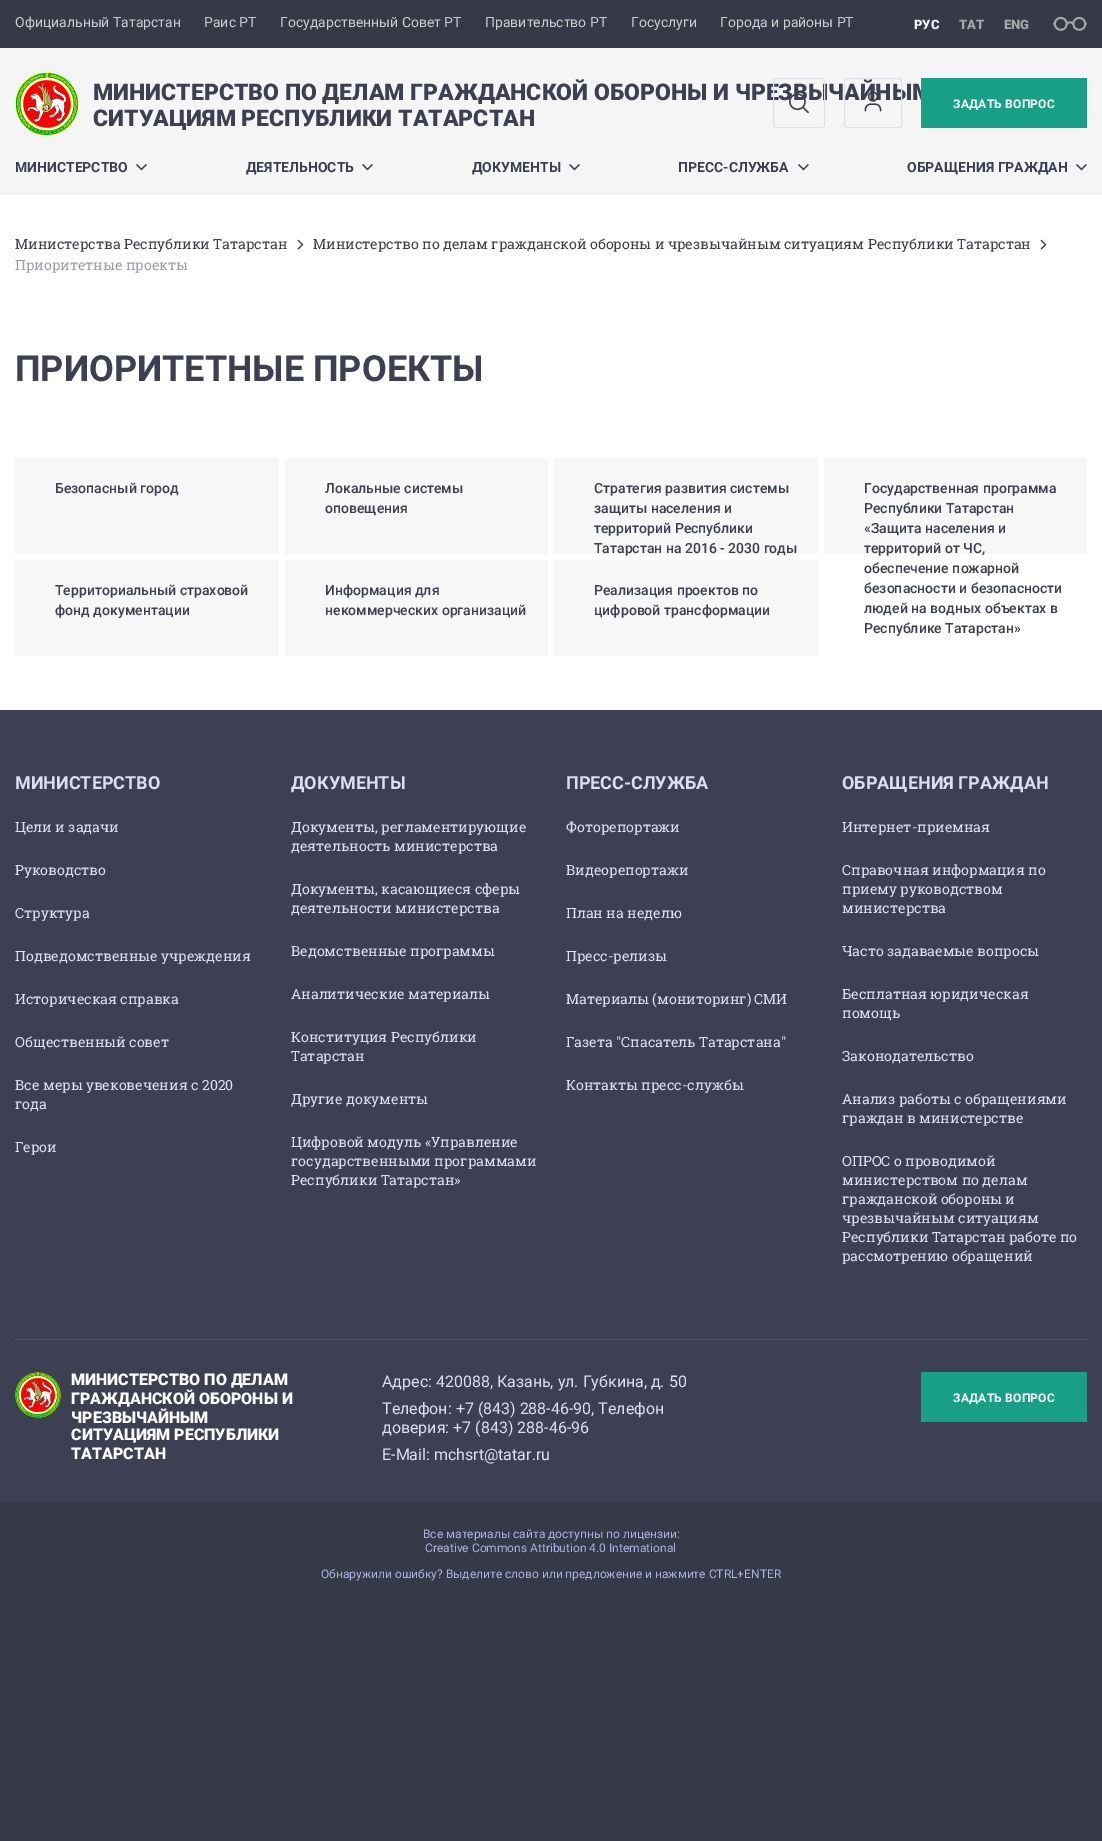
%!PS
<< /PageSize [1102 1841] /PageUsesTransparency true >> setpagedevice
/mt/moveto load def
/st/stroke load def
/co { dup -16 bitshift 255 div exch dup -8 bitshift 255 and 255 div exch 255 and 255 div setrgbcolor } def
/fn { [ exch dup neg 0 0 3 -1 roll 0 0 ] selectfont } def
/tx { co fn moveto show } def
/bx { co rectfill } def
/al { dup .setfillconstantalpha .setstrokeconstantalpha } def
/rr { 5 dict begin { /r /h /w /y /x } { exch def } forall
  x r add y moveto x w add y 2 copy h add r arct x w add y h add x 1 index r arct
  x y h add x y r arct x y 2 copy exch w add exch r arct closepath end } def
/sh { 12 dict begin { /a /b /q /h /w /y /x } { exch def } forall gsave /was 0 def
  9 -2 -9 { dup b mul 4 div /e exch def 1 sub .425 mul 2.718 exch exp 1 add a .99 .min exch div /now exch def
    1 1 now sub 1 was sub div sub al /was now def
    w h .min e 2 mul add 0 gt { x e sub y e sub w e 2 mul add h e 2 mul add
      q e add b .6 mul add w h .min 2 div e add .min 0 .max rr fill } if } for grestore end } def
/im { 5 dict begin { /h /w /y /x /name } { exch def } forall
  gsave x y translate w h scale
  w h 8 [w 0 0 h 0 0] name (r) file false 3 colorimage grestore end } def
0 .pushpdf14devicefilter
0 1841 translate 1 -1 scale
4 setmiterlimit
0 0 1102 1841 16#363A48 bx
(media/1.raw) 1053 16 34 15 im
0 193 1102 517 16#FFFFFF bx
16#000000 co
0 48 1102 145 0 1.5 .16 sh
0 48 1102 145 16#F5F5F5 bx
(media/2.raw) 15 72 64 64 im
(media/5.raw) 136 164 11 7 im
(media/5.raw) 362 164 11 7 im
(media/5.raw) 569 164 11 7 im
(media/5.raw) 798 164 11 7 im
(media/5.raw) 1076 164 11 7 im
(media/6.raw) 297 239 7 11 im
(media/6.raw) 1040 239 7 11 im
15 458 264 96 16#F7F7F7 bx
285 458 263 96 16#F7F7F7 bx
554 458 264 96 16#F7F7F7 bx
824 458 263 96 16#F7F7F7 bx
15 560 264 96 16#F7F7F7 bx
285 560 263 96 16#F7F7F7 bx
554 560 264 96 16#F7F7F7 bx
0 710 1102 792 16#3C4052 bx
15 1339 1072 1 16#4E5269 bx
(media/7.raw) 15 1372 46 46 im
921 1372 166 50 16#17A085 bx
(Официальный Татарстан) 15 27 /Roboto-Regular 14 16#CDCED1 tx
(Раис РТ) 204 27 /Roboto-Regular 14 16#CDCED1 tx
(Государственный Совет РТ) 280 27 /Roboto-Regular 14 16#CDCED1 tx
(Правительство РТ) 485 27 /Roboto-Regular 14 16#CDCED1 tx
(Госуслуги) 631 27 /Roboto-Regular 14 16#CDCED1 tx
(Города и районы РТ) 720 27 /Roboto-Regular 14 16#CDCED1 tx
(РУС) 914 29 /Roboto-Black 13 16#F7F7F7 tx
(ТАТ) 959 29 /Roboto-Black 13 16#A7A7A7 tx
(ENG) 1004 29 /Roboto-Black 13 16#A7A7A7 tx
(МИНИСТЕРСТВО ПО ДЕЛАМ ГРАЖДАНСКОЙ ОБОРОНЫ И ЧРЕЗВЫЧАЙНЫМ) 93 100 /Roboto-Black 23 16#3C4052 tx
(СИТУАЦИЯМ РЕСПУБЛИКИ ТАТАРСТАН) 93 126 /Roboto-Black 23 16#3C4052 tx
16#DEE1E6 co
773.5 78.5 51 49 2.5 rr st
(media/3.raw) 789 93 20 21 im
844.5 78.5 57 49 2.5 rr st
(media/4.raw) 864 91 18 21 im
921 78 166 50 16#17A085 bx
/Roboto-Bold 12 fn
16#FFFFFF co
953 108 mt .25 0 (ЗАДАТЬ ВОПРОС) ashow
(МИНИСТЕРСТВО) 15 172 /Roboto-Bold 14 16#3C4052 tx
(ДЕЯТЕЛЬНОСТЬ) 246 172 /Roboto-Bold 14 16#3C4052 tx
(ДОКУМЕНТЫ) 472 172 /Roboto-Bold 14 16#3C4052 tx
(ПРЕСС-СЛУЖБА) 678 172 /Roboto-Bold 14 16#3C4052 tx
(ОБРАЩЕНИЯ ГРАЖДАН) 907 172 /Roboto-Bold 14 16#3C4052 tx
(Министерства Республики Татарстан) 15 249 /RobotoSlab-Regular 14 16#3C4052 tx
(Министерство по делам гражданской обороны и чрезвычайным ситуациям Республики Татарстан) 313 249 /RobotoSlab-Regular 14 16#3C4052 tx
(Приоритетные проекты) 15 270 /RobotoSlab-Regular 14 16#9EA0A9 tx
(ПРИОРИТЕТНЫЕ ПРОЕКТЫ) 15 381 /Roboto-Bold 36 16#3C4052 tx
(Безопасный город) 55 493 /Roboto-Medium 14 16#3C4052 tx
(Локальные системы) 325 493 /Roboto-Medium 14 16#3C4052 tx
(оповещения) 325 513 /Roboto-Medium 14 16#3C4052 tx
(Стратегия развития системы) 594 493 /Roboto-Medium 14 16#3C4052 tx
(защиты населения и) 594 513 /Roboto-Medium 14 16#3C4052 tx
(территорий Республики) 594 533 /Roboto-Medium 14 16#3C4052 tx
(Татарстан на 2016 - 2030 годы) 594 553 /Roboto-Medium 14 16#3C4052 tx
(Государственная программа) 864 493 /Roboto-Medium 14 16#3C4052 tx
(Республики Татарстан) 864 513 /Roboto-Medium 14 16#3C4052 tx
(«Защита населения и) 864 533 /Roboto-Medium 14 16#3C4052 tx
(территорий от ЧС,) 864 553 /Roboto-Medium 14 16#3C4052 tx
(обеспечение пожарной) 864 573 /Roboto-Medium 14 16#3C4052 tx
(безопасности и безопасности) 864 593 /Roboto-Medium 14 16#3C4052 tx
(людей на водных объектах в) 864 613 /Roboto-Medium 14 16#3C4052 tx
(Республике Татарстан») 864 633 /Roboto-Medium 14 16#3C4052 tx
(Территориальный страховой) 55 595 /Roboto-Medium 14 16#3C4052 tx
(фонд документации) 55 615 /Roboto-Medium 14 16#3C4052 tx
(Информация для) 325 595 /Roboto-Medium 14 16#3C4052 tx
(некоммерческих организаций) 325 615 /Roboto-Medium 14 16#3C4052 tx
(Реализация проектов по) 594 595 /Roboto-Medium 14 16#3C4052 tx
(цифровой трансформации) 594 615 /Roboto-Medium 14 16#3C4052 tx
(МИНИСТЕРСТВО) 15 789 /Roboto-Bold 18 16#DEDEF3 tx
(Цели и задачи) 15 832 /RobotoSlab-Regular 14 16#DEDEF3 tx
(Руководство) 15 875 /RobotoSlab-Regular 14 16#DEDEF3 tx
(Структура) 15 918 /RobotoSlab-Regular 14 16#DEDEF3 tx
(Подведомственные учреждения) 15 961 /RobotoSlab-Regular 14 16#DEDEF3 tx
(Историческая справка) 15 1004 /RobotoSlab-Regular 14 16#DEDEF3 tx
(Общественный совет) 15 1047 /RobotoSlab-Regular 14 16#DEDEF3 tx
(Все меры увековечения с 2020) 15 1090 /RobotoSlab-Regular 14 16#DEDEF3 tx
(года) 15 1109 /RobotoSlab-Regular 14 16#DEDEF3 tx
(Герои) 15 1152 /RobotoSlab-Regular 14 16#DEDEF3 tx
(ДОКУМЕНТЫ) 291 789 /Roboto-Bold 18 16#DEDEF3 tx
(Документы, регламентирующие) 291 832 /RobotoSlab-Regular 14 16#DEDEF3 tx
(деятельность министерства) 291 851 /RobotoSlab-Regular 14 16#DEDEF3 tx
(Документы, касающиеся сферы) 291 894 /RobotoSlab-Regular 14 16#DEDEF3 tx
(деятельности министерства) 291 913 /RobotoSlab-Regular 14 16#DEDEF3 tx
(Ведомственные программы) 291 956 /RobotoSlab-Regular 14 16#DEDEF3 tx
(Аналитические материалы) 291 999 /RobotoSlab-Regular 14 16#DEDEF3 tx
(Конституция Республики) 291 1042 /RobotoSlab-Regular 14 16#DEDEF3 tx
(Татарстан) 291 1061 /RobotoSlab-Regular 14 16#DEDEF3 tx
(Другие документы) 291 1104 /RobotoSlab-Regular 14 16#DEDEF3 tx
(Цифровой модуль «Управление) 291 1147 /RobotoSlab-Regular 14 16#DEDEF3 tx
(государственными программами) 291 1166 /RobotoSlab-Regular 14 16#DEDEF3 tx
(Республики Татарстан») 291 1185 /RobotoSlab-Regular 14 16#DEDEF3 tx
(ПРЕСС-СЛУЖБА) 566 789 /Roboto-Bold 18 16#DEDEF3 tx
(Фоторепортажи) 566 832 /RobotoSlab-Regular 14 16#DEDEF3 tx
(Видеорепортажи) 566 875 /RobotoSlab-Regular 14 16#DEDEF3 tx
(План на неделю) 566 918 /RobotoSlab-Regular 14 16#DEDEF3 tx
(Пресс-релизы) 566 961 /RobotoSlab-Regular 14 16#DEDEF3 tx
(Материалы \(мониторинг\) СМИ) 566 1004 /RobotoSlab-Regular 14 16#DEDEF3 tx
(Газета "Спасатель Татарстана") 566 1047 /RobotoSlab-Regular 14 16#DEDEF3 tx
(Контакты пресс-службы) 566 1090 /RobotoSlab-Regular 14 16#DEDEF3 tx
(ОБРАЩЕНИЯ ГРАЖДАН) 842 789 /Roboto-Bold 18 16#DEDEF3 tx
(Интернет-приемная) 842 832 /RobotoSlab-Regular 14 16#DEDEF3 tx
(Справочная информация по) 842 875 /RobotoSlab-Regular 14 16#DEDEF3 tx
(приему руководством) 842 894 /RobotoSlab-Regular 14 16#DEDEF3 tx
(министерства) 842 913 /RobotoSlab-Regular 14 16#DEDEF3 tx
(Часто задаваемые вопросы) 842 956 /RobotoSlab-Regular 14 16#DEDEF3 tx
(Бесплатная юридическая) 842 999 /RobotoSlab-Regular 14 16#DEDEF3 tx
(помощь) 842 1018 /RobotoSlab-Regular 14 16#DEDEF3 tx
(Законодательство) 842 1061 /RobotoSlab-Regular 14 16#DEDEF3 tx
(Анализ работы с обращениями) 842 1104 /RobotoSlab-Regular 14 16#DEDEF3 tx
(граждан в министерстве) 842 1123 /RobotoSlab-Regular 14 16#DEDEF3 tx
(ОПРОС о проводимой) 842 1166 /RobotoSlab-Regular 14 16#DEDEF3 tx
(министерством по делам) 842 1185 /RobotoSlab-Regular 14 16#DEDEF3 tx
(гражданской обороны и) 842 1204 /RobotoSlab-Regular 14 16#DEDEF3 tx
(чрезвычайным ситуациям) 842 1223 /RobotoSlab-Regular 14 16#DEDEF3 tx
(Республики Татарстан работе по) 842 1242 /RobotoSlab-Regular 14 16#DEDEF3 tx
(рассмотрению обращений) 842 1261 /RobotoSlab-Regular 14 16#DEDEF3 tx
(МИНИСТЕРСТВО ПО ДЕЛАМ) 71 1385 /Roboto-Black 16 16#FFFFFF tx
(ГРАЖДАНСКОЙ ОБОРОНЫ И) 71 1404 /Roboto-Black 16 16#FFFFFF tx
(ЧРЕЗВЫЧАЙНЫМ) 71 1423 /Roboto-Black 16 16#FFFFFF tx
(СИТУАЦИЯМ РЕСПУБЛИКИ) 71 1440 /Roboto-Black 16 16#FFFFFF tx
(ТАТАРСТАН) 71 1459 /Roboto-Black 16 16#FFFFFF tx
(Адрес: 420088, Казань, ул. Губкина, д. 50) 382 1387 /Roboto-Regular 16 16#DEDEF3 tx
(Телефон: +7 \(843\) 288-46-90, Телефон) 382 1414 /Roboto-Regular 16 16#DEDEF3 tx
(доверия: +7 \(843\) 288-46-96) 382 1433 /Roboto-Regular 16 16#DEDEF3 tx
(E-Mail: mchsrt@tatar.ru) 382 1460 /Roboto-Regular 16 16#DEDEF3 tx
/Roboto-Bold 12 fn
16#FFFFFF co
953 1402 mt .25 0 (ЗАДАТЬ ВОПРОС) ashow
(Все материалы сайта доступны по лицензии:) 423 1538 /Roboto-Regular 12 16#ADB1E3 tx
(Creative Commons Attribution 4.0 International) 425 1552 /Roboto-Regular 12 16#ADB1E3 tx
(Обнаружили ошибку? Выделите слово или предложение и нажмите CTRL+ENTER) 321 1578 /Roboto-Regular 12 16#ADB1E3 tx
.poppdf14devicefilter showpage
